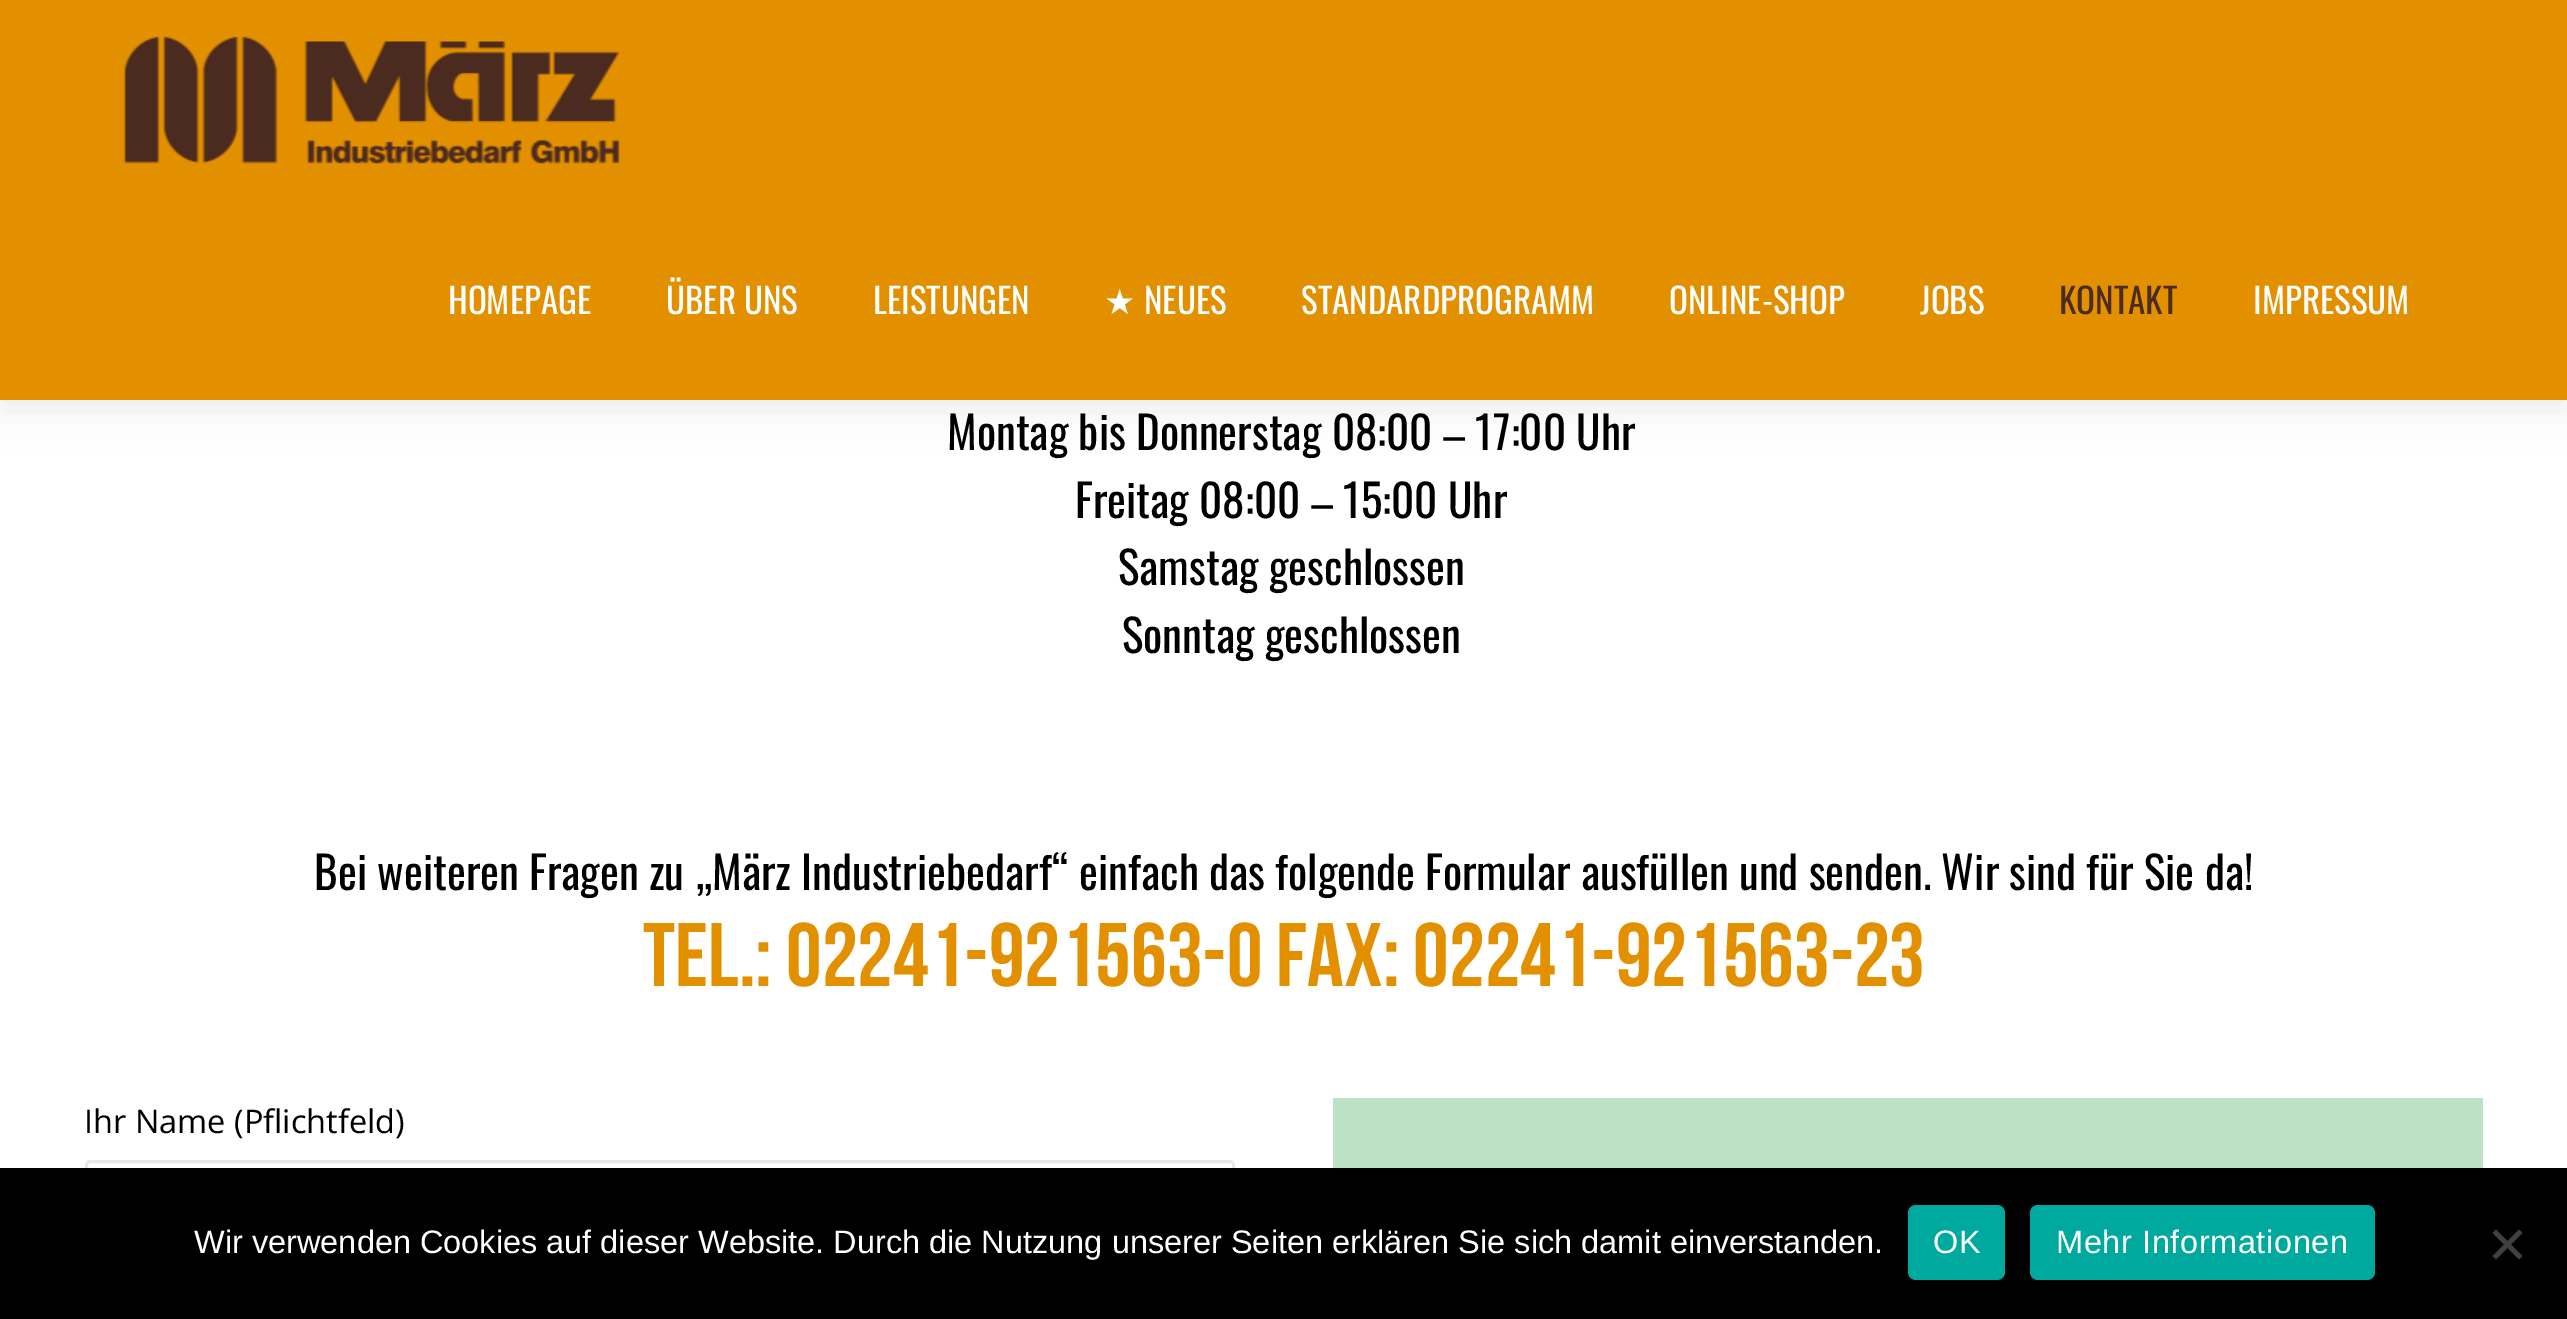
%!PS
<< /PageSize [2567 1319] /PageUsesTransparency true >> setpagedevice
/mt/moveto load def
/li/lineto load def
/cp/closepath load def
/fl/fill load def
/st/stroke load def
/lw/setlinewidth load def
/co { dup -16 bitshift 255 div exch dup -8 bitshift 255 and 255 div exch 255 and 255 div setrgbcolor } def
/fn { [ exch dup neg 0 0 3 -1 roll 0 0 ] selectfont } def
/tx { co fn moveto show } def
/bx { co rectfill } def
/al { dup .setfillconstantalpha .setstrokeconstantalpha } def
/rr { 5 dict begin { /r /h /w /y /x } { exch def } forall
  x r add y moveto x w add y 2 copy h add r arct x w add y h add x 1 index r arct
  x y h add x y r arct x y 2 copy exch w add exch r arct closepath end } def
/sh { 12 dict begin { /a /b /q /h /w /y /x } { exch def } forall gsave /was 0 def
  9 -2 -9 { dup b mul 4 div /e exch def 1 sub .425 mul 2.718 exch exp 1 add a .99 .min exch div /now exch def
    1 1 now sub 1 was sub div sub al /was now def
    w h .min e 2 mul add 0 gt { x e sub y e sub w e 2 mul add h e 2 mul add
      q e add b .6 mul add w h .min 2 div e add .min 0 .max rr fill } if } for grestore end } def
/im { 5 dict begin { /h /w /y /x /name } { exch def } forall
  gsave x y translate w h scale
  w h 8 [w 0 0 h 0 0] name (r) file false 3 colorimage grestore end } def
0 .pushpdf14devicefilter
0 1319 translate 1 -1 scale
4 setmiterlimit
0 0 2567 1319 16#FFFFFF bx
16#000000 co
0 10 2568 400 0 19 .07 sh
0 0 2567 400 16#E29000 bx
(media/1.raw) 123 36 497 128 im
16#E8E8E8 co
3 lw
86.5 1161.5 1147 115 3.5 rr st
1333 1098 1150 70 16#BBE2C5 bx
0 1168 2567 151 16#000000 bx
16#00A99D co
1908 1205 97 75 8 rr fl
2030 1205 345 75 8 rr fl
16#404040 co
2519 1229.5 mt 2522.5 1233 li 2496 1259.5 li 2492.5 1256 li cp fl
2492.5 1233 mt 2496 1229.5 li 2522.5 1256 li 2519 1259.5 li cp fl
(HOMEPAGE) 448 314 /Oswald-Regular 35 16#FFFFFF tx
(ÜBER UNS) 666 314 /Oswald-Regular 35 16#FFFFFF tx
(LEISTUNGEN) 873 314 /Oswald-Regular 35 16#FFFFFF tx
(★) 1104 314 /DejaVuSans-Regular 35 16#FFFFFF tx
(NEUES) 1144 314 /Oswald-Regular 35 16#FFFFFF tx
(STANDARDPROGRAMM) 1301 314 /Oswald-Regular 35 16#FFFFFF tx
(ONLINE-SHOP) 1669 314 /Oswald-Regular 35 16#FFFFFF tx
(JOBS) 1920 314 /Oswald-Regular 35 16#FFFFFF tx
(KONTAKT) 2059 314 /Oswald-Regular 35 16#4C2B20 tx
(IMPRESSUM) 2253 314 /Oswald-Regular 35 16#FFFFFF tx
(Montag bis Donnerstag 08:00 – 17:00 Uhr) 947 450 /Oswald-Regular 45 16#000000 tx
(Freitag 08:00 – 15:00 Uhr) 1075 518 /Oswald-Regular 45 16#000000 tx
(Samstag geschlossen) 1118 585 /Oswald-Regular 45 16#000000 tx
(Sonntag geschlossen) 1122 653 /Oswald-Regular 45 16#000000 tx
(Bei weiteren Fragen zu „März Industriebedarf“ einfach das folgende Formular ausfüllen und senden. Wir sind für Sie da!) 314 890 /Oswald-Regular 45 16#000000 tx
(Tel.: 02241-921563-0 Fax: 02241-921563-23) 643 986 /BebasNeue-Regular 90 16#E29000 tx
(Ihr Name \(Pflichtfeld\)) 84 1133 /OpenSans-Regular 32.5 16#000000 tx
(Wir verwenden Cookies auf dieser Website. Durch die Nutzung unserer Seiten erklären Sie sich damit einverstanden.) 194 1253 /LiberationSans-Regular 32.5 16#FFFFFF tx
1933 1253 mt .6 0 (OK) ashow
2056 1253 mt .6 0 (Mehr Informationen) ashow
.poppdf14devicefilter showpage
